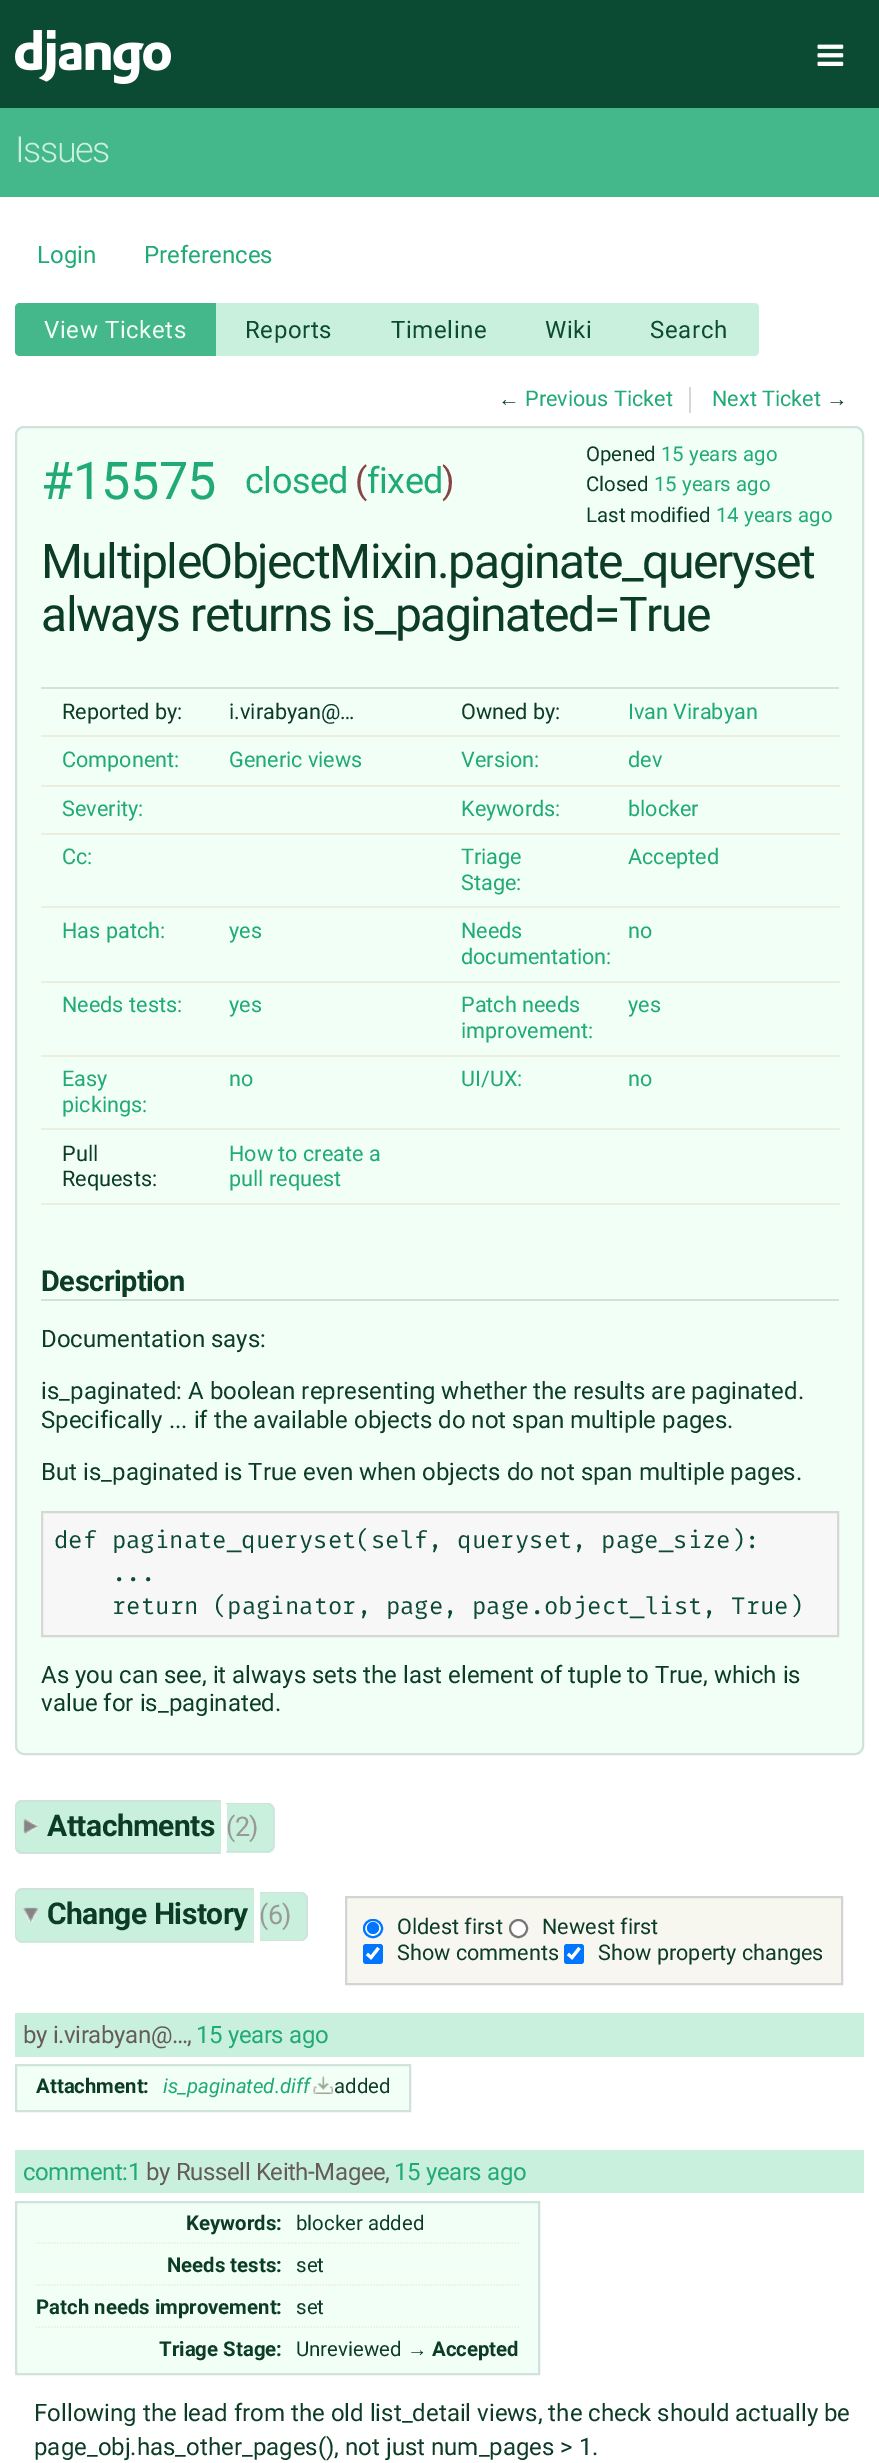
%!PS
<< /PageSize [879 2463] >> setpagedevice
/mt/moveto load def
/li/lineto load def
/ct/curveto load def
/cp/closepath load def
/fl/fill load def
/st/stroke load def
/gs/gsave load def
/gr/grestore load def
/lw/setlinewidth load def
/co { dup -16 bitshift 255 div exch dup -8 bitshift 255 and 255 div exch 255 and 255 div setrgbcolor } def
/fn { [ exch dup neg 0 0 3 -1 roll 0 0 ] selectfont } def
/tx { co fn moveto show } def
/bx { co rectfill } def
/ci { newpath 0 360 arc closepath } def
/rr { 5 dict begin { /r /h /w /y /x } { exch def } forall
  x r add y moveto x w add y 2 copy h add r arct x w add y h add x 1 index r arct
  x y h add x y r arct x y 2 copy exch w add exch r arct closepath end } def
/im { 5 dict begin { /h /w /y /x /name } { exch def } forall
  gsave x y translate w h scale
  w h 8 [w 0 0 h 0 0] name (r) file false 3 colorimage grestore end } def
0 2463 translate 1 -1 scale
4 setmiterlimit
0 0 879 2463 16#44B78B bx
0 0 879 108 16#0C4B33 bx
(media/1.raw) 15 30 156 54 im
(media/2.raw) 817 44 27 22 im
0 197 879 2266 16#FFFFFF bx
16#44B78B co
20 303 mt 218 303 li 218 356 li 20 356 li 17 356 15 354 15 351 ct 15 308 li 15 305 17 303 20 303 ct cp fl
216 303 405 53 16#C9F0DD bx
621 303 mt 754 303 li 757 303 759 305 759 308 ct 759 351 li 759 354 757 356 754 356 ct 621 356 li cp fl
689 387 2 26 16#D7D7D7 bx
16#F1FFF7 co
16 427 847 1327 8 rr gs fl gr
16#CFE3DC co
2 lw
st
41 687 798 2 16#CFE3DC bx
41 735 799 2 16#EEEEDD bx
41 785 799 2 16#EEEEDD bx
41 833 799 2 16#EEEEDD bx
41 906 799 2 16#EEEEDD bx
41 981 799 2 16#EEEEDD bx
41 1055 799 2 16#EEEEDD bx
41 1128 799 2 16#EEEEDD bx
41 1203 799 2 16#EEEEDD bx
41 1299 798 2 16#CFE3DC bx
16#F7F7F7 co
42 1512 mt 838 1512 li 838 1636 li 42 1636 li cp gs fl gr
16#D7D7D7 co
st
16#C9F0DD co
23 1800 mt 221 1800 li 221 1854 li 23 1854 li 18.5 1854 15 1850.5 15 1846 ct 15 1808 li 15 1803.5 18.5 1800 23 1800 ct cp fl
(media/3.raw) 23 1818 15 17 im
16#CFE3DC co
22 1800 mt 220 1800 li 220 1854 li 22 1854 li 18 1854 15 1851 15 1846 ct 15 1808 li 15 1803 18 1800 22 1800 ct cp 22 1802 mt 220 1802 li 220 1852 li 22 1852 li 19 1852 16 1850 16 1846 ct 16 1808 li 16 1804 19 1802 22 1802 ct cp eofill
16#C9F0DD co
227 1803 mt 267 1803 li 271.5 1803 275 1806.5 275 1811 ct 275 1845 li 275 1849.5 271.5 1853 267 1853 ct 227 1853 li cp fl
16#CFE3DC co
226 1803 mt 267 1803 li 271 1803 274 1806 274 1810 ct 274 1845 li 274 1849 271 1852 267 1852 ct 226 1852 li cp 226 1804 mt 267 1804 li 270 1804 273 1807 273 1810 ct 273 1845 li 273 1848 270 1851 267 1851 ct 226 1851 li cp eofill
16#C9F0DD co
23 1889 mt 254 1889 li 254 1943 li 23 1943 li 18.5 1943 15 1939.5 15 1935 ct 15 1897 li 15 1892.5 18.5 1889 23 1889 ct cp fl
(media/4.raw) 22 1907 17 15 im
16#CFE3DC co
22 1888 mt 254 1888 li 254 1942 li 22 1942 li 18 1942 15 1939 15 1935 ct 15 1896 li 15 1892 18 1888 22 1888 ct cp 22 1890 mt 254 1890 li 254 1941 li 22 1941 li 19 1941 16 1938 16 1935 ct 16 1896 li 16 1893 19 1890 22 1890 ct cp eofill
16#C9F0DD co
260 1892 mt 300 1892 li 304.5 1892 308 1895.5 308 1900 ct 308 1933 li 308 1937.5 304.5 1941 300 1941 ct 260 1941 li cp fl
16#CFE3DC co
260 1892 mt 300 1892 li 304 1892 308 1895 308 1899 ct 308 1934 li 308 1938 304 1941 300 1941 ct 260 1941 li cp 260 1893 mt 300 1893 li 303 1893 306 1896 306 1899 ct 306 1934 li 306 1937 303 1940 300 1940 ct 260 1940 li cp eofill
16#F7F7F0 co
346 1897 mt 842 1897 li 842 1984 li 346 1984 li cp gs fl gr
16#D4D4D4 co
st
16#FFFFFF co
364 1920 18 17 8.5 rr gs fl gr
16#0075FF co
st
373 1928 6 ci fl
16#FFFFFF co
518.5 1928.5 8.5 ci gs fl gr
16#767676 co
st
16#0075FF co
363 1944 20 20 3 rr fl
16#FFFFFF co
3.1 lw
367 1954 mt 371 1957.5 li 378.5 1948 li st
16#0075FF co
564 1944 20 20 3 rr fl
16#FFFFFF co
568 1954 mt 572 1957.5 li 579.5 1948 li st
15 2013 849 44 16#C9F0DD bx
16#F1FFF7 co
16 2065 mt 410 2065 li 410 2111 li 16 2111 li cp gs fl gr
16#CFE3DC co
2 lw
st
(media/5.raw) 313 2076 20 18 im
15 2150 849 43 16#C9F0DD bx
16#F1FFF7 co
16 2202 mt 539 2202 li 539 2374 li 16 2374 li cp gs fl gr
16#CFE3DC co
st
16#EEEEDD co
1.5 lw
[1.5 1.5] 0 setdash
36 2243 mt 295.5 2243 li st
295.5 2243 mt 519 2243 li st
36 2285 mt 295.5 2285 li st
295.5 2285 mt 519 2285 li st
36 2327 mt 295.5 2327 li st
295.5 2327 mt 519 2327 li st
/Roboto-Light 36 fn
16#C9F0DD co
15 162 mt -1.5 0 (Issues) ashow
(Login) 37 263 /Roboto-Regular 24 16#20AA76 tx
(Preferences) 144 263 /Roboto-Regular 24 16#20AA76 tx
16#F1FFF7 co
44 338 mt .6 0 (View Tickets) ashow
16#0C4B33 co
245 338 mt .6 0 (Reports) ashow
391 338 mt .6 0 (Timeline) ashow
545 338 mt .6 0 (Wiki) ashow
650 338 mt .6 0 (Search) ashow
(←) 498 406 /LiberationSans-Regular 21.6 16#0C3C26 tx
(Previous Ticket) 525 406 /Roboto-Regular 21.6 16#20AA76 tx
(Next Ticket) 712 406 /Roboto-Regular 21.6 16#20AA76 tx
(→) 826 406 /LiberationSans-Regular 21.6 16#0C3C26 tx
/Roboto-Regular 52 fn
16#20AA76 co
41 499 mt -.5 0 (#15575) ashow
/Roboto-Regular 36 fn
245 493 mt -.5 0 (closed) ashow
16#884444 co
355 493 mt -.5 0 (\() ashow
16#20AA76 co
367 493 mt -.5 0 (fixed) ashow
16#884444 co
442 493 mt -.5 0 (\)) ashow
(Opened) 586 461 /Roboto-Regular 20.4 16#0C3C26 tx
(15 years ago) 661 461 /Roboto-Regular 20.4 16#20AA76 tx
(Closed) 586 491 /Roboto-Regular 20.4 16#0C3C26 tx
(15 years ago) 654 491 /Roboto-Regular 20.4 16#20AA76 tx
(Last modified) 586 522 /Roboto-Regular 20.4 16#0C3C26 tx
(14 years ago) 716 522 /Roboto-Regular 20.4 16#20AA76 tx
/Roboto-Regular 48 fn
16#0C3C26 co
41 578 mt -1.5 0 (MultipleObjectMixin.paginate_queryset) ashow
41 631 mt -1.5 0 (always returns is_paginated=True) ashow
(Reported by:) 62 719 /Roboto-Regular 21.6 16#0C3C26 tx
(i.virabyan@…) 229 719 /Roboto-Regular 21.6 16#0C3C26 tx
(Owned by:) 461 719 /Roboto-Regular 21.6 16#0C3C26 tx
(Ivan Virabyan) 628 719 /Roboto-Regular 21.6 16#20AA76 tx
(Component:) 62 767 /Roboto-Regular 21.6 16#20AA76 tx
(Generic views) 229 767 /Roboto-Regular 21.6 16#20AA76 tx
(Version:) 461 767 /Roboto-Regular 21.6 16#20AA76 tx
(dev) 628 767 /Roboto-Regular 21.6 16#20AA76 tx
(Severity:) 62 816 /Roboto-Regular 21.6 16#20AA76 tx
(Keywords:) 461 816 /Roboto-Regular 21.6 16#20AA76 tx
(blocker) 628 816 /Roboto-Regular 21.6 16#20AA76 tx
(Cc:) 62 864 /Roboto-Regular 21.6 16#20AA76 tx
(Triage) 461 864 /Roboto-Regular 21.6 16#20AA76 tx
(Stage:) 461 890 /Roboto-Regular 21.6 16#20AA76 tx
(Accepted) 628 864 /Roboto-Regular 21.6 16#20AA76 tx
(Has patch:) 62 938 /Roboto-Regular 21.6 16#20AA76 tx
(yes) 229 938 /Roboto-Regular 21.6 16#20AA76 tx
(Needs) 461 938 /Roboto-Regular 21.6 16#20AA76 tx
(documentation:) 461 964 /Roboto-Regular 21.6 16#20AA76 tx
(no) 628 938 /Roboto-Regular 21.6 16#20AA76 tx
(Needs tests:) 62 1012 /Roboto-Regular 21.6 16#20AA76 tx
(yes) 229 1012 /Roboto-Regular 21.6 16#20AA76 tx
(Patch needs) 461 1012 /Roboto-Regular 21.6 16#20AA76 tx
(improvement:) 461 1038 /Roboto-Regular 21.6 16#20AA76 tx
(yes) 628 1012 /Roboto-Regular 21.6 16#20AA76 tx
(Easy) 62 1086 /Roboto-Regular 21.6 16#20AA76 tx
(pickings:) 62 1112 /Roboto-Regular 21.6 16#20AA76 tx
(no) 229 1086 /Roboto-Regular 21.6 16#20AA76 tx
(UI/UX:) 461 1086 /Roboto-Regular 21.6 16#20AA76 tx
(no) 628 1086 /Roboto-Regular 21.6 16#20AA76 tx
(Pull) 62 1161 /Roboto-Regular 21.6 16#0C3C26 tx
(Requests:) 62 1186 /Roboto-Regular 21.6 16#0C3C26 tx
(How to create a) 229 1161 /Roboto-Regular 21.6 16#20AA76 tx
(pull request) 229 1186 /Roboto-Regular 21.6 16#20AA76 tx
/Roboto-Bold 29 fn
16#0C3C26 co
41 1291 mt -.5 0 (Description) ashow
(Documentation says:) 41 1347 /Roboto-Regular 24 16#0C3C26 tx
(is_paginated: A boolean representing whether the results are paginated.) 41 1399 /Roboto-Regular 24 16#0C3C26 tx
(Specifically ... if the available objects do not span multiple pages.) 41 1428 /Roboto-Regular 24 16#0C3C26 tx
(But is_paginated is True even when objects do not span multiple pages.) 41 1480 /Roboto-Regular 24 16#0C3C26 tx
(def paginate_queryset\(self, queryset, page_size\):) 54 1548 /FiraMono-Regular 24 16#0C4B33 tx
(...) 112 1581 /FiraMono-Regular 24 16#0C4B33 tx
(return \(paginator, page, page.object_list, True\)) 112 1614 /FiraMono-Regular 24 16#0C4B33 tx
(As you can see, it always sets the last element of tuple to True, which is) 41 1683 /Roboto-Regular 24 16#0C3C26 tx
(value for is_paginated.) 41 1711 /Roboto-Regular 24 16#0C3C26 tx
/Roboto-Bold 30 fn
47 1836 mt -.5 0 (Attachments) ashow
/Roboto-Regular 27 fn
16#999999 co
226 1836 mt -.5 0 (\(2\)) ashow
/Roboto-Bold 30 fn
16#0C3C26 co
47 1924 mt -.5 0 (Change History) ashow
/Roboto-Regular 27 fn
16#999999 co
259 1924 mt -.5 0 (\(6\)) ashow
(Oldest first) 397 1934 /Roboto-Regular 21.6 16#0C3C26 tx
(Newest first) 542 1934 /Roboto-Regular 21.6 16#0C3C26 tx
(Show comments) 397 1960 /Roboto-Regular 21.6 16#0C3C26 tx
(Show property changes) 598 1960 /Roboto-Regular 21.6 16#0C3C26 tx
/Roboto-Regular 24 fn
16#655B5B co
23 2043 mt -.4 0 (by i.virabyan@…,) ashow
16#20AA76 co
196 2043 mt -.4 0 (15 years ago) ashow
(Attachment:) 36 2093 /Roboto-Bold 20.4 16#0C3C26 tx
(is_paginated.diff) 163 2093 /Roboto-Italic 20.4 16#20AA76 tx
(added) 334 2093 /Roboto-Regular 20.4 16#0C3C26 tx
/Roboto-Regular 24 fn
16#20AA76 co
23 2180 mt -.4 0 (comment:1) ashow
16#655B5B co
146 2180 mt -.4 0 (by Russell Keith-Magee,) ashow
16#20AA76 co
394 2180 mt -.4 0 (15 years ago) ashow
(Keywords:) 186 2230 /Roboto-Bold 20.4 16#0C3C26 tx
(blocker added) 296 2230 /Roboto-Regular 20.4 16#0C3C26 tx
(Needs tests:) 167 2272 /Roboto-Bold 20.4 16#0C3C26 tx
(set) 296 2272 /Roboto-Regular 20.4 16#0C3C26 tx
(Patch needs improvement:) 36 2314 /Roboto-Bold 20.4 16#0C3C26 tx
(set) 296 2314 /Roboto-Regular 20.4 16#0C3C26 tx
(Triage Stage:) 159 2356 /Roboto-Bold 20.4 16#0C3C26 tx
(Unreviewed) 296 2356 /Roboto-Regular 20.4 16#0C3C26 tx
(→) 407 2356 /LiberationSans-Regular 20.4 16#0C3C26 tx
(Accepted) 432 2356 /Roboto-Bold 20.4 16#0C3C26 tx
(Following the lead from the old list_detail views, the check should actually be) 34 2421 /Roboto-Regular 24 16#0C3C26 tx
(page_obj.has_other_pages\(\), not just num_pages > 1.) 34 2455 /Roboto-Regular 24 16#0C3C26 tx
showpage
